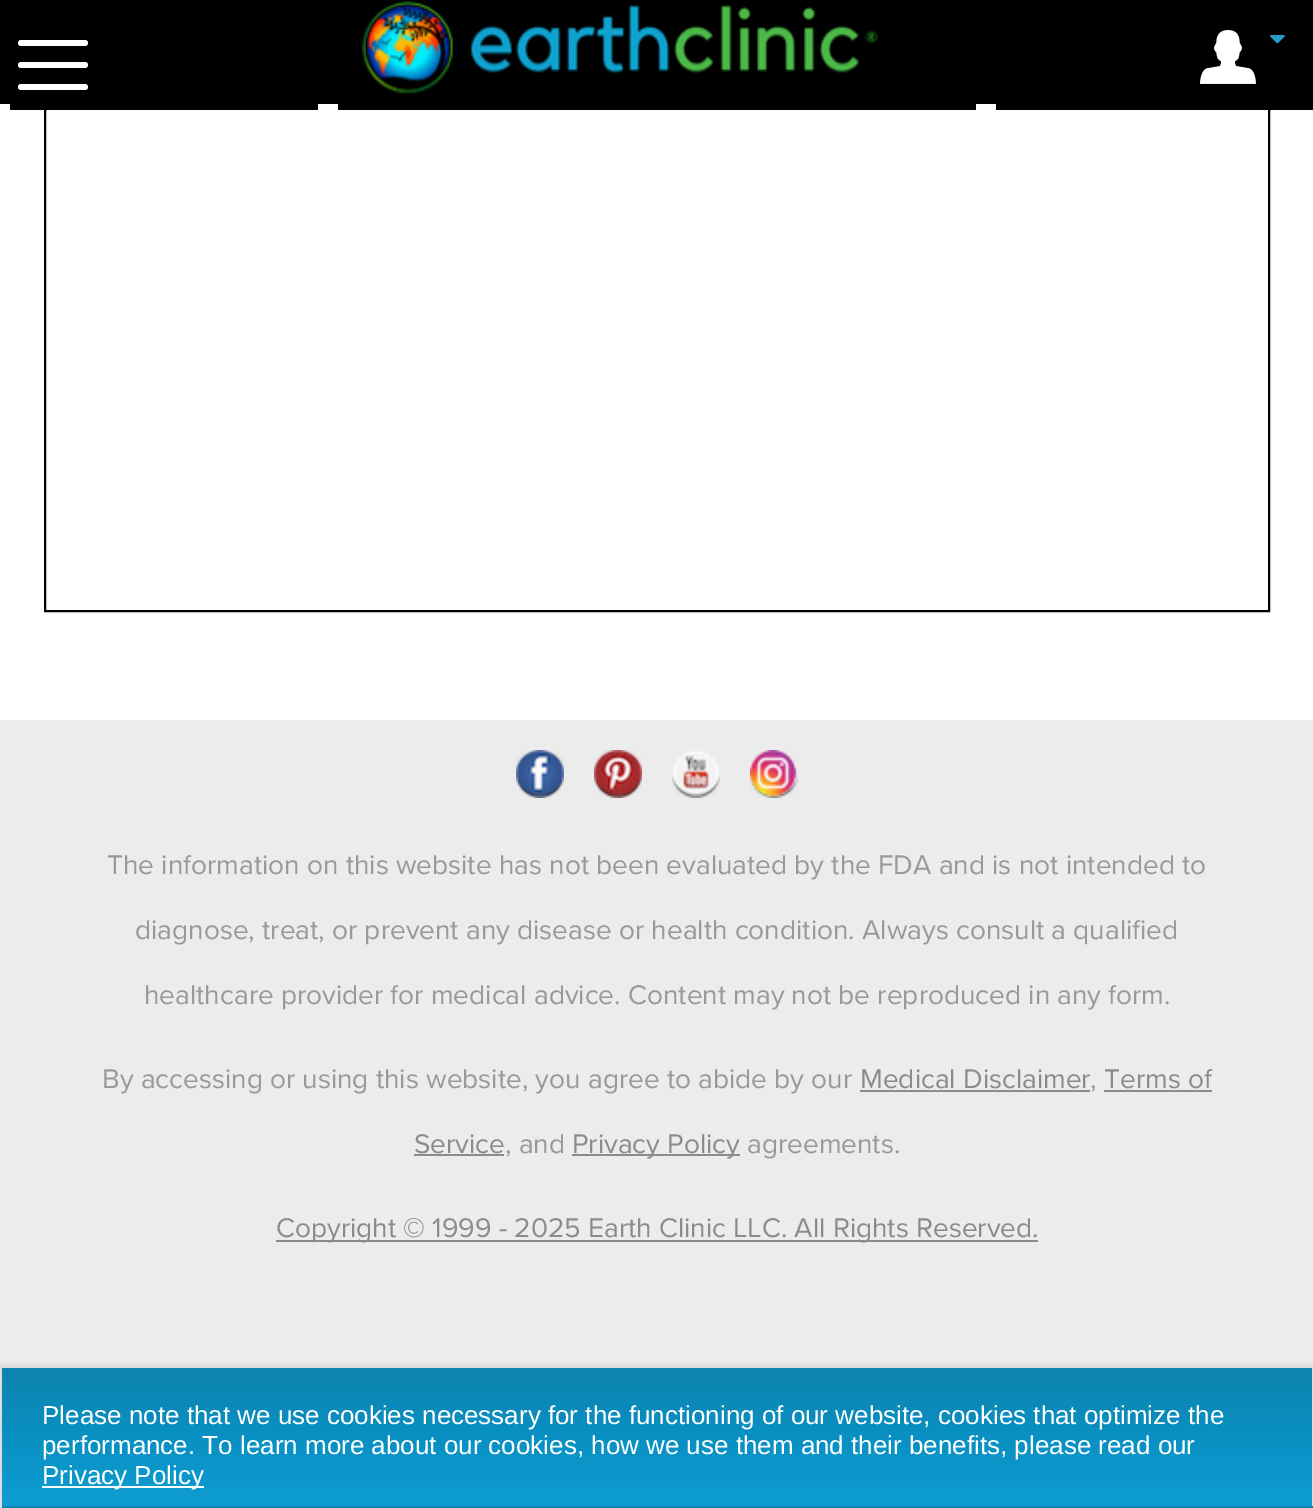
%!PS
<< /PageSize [1313 1508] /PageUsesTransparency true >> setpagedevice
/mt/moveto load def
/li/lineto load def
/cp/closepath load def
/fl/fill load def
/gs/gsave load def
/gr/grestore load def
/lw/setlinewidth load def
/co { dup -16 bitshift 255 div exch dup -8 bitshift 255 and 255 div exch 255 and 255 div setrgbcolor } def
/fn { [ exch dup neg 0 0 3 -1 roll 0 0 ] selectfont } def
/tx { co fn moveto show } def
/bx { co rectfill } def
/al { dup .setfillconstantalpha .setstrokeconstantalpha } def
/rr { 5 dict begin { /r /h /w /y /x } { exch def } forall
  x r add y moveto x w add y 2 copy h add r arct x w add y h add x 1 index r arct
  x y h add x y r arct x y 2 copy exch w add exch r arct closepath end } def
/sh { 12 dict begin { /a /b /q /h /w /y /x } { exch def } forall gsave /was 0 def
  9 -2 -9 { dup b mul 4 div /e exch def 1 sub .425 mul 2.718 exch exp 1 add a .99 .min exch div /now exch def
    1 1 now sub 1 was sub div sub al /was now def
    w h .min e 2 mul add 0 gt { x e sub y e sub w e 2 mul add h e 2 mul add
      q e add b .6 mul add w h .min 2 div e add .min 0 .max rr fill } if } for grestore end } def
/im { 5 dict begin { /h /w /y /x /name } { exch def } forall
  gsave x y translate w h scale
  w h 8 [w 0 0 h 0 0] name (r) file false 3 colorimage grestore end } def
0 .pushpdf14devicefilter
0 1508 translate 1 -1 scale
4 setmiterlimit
0 0 1313 1508 16#FFFFFF bx
16#000000 co
2 lw
45 -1 1224 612 rectstroke
0 0 996 104 16#000000 bx
10 104 308 6 16#000000 bx
16#FFFFFF co
18 40 70 6 3 rr fl
18 62 70 6 3 rr fl
18 84 70 6 3 rr fl
338 104 638 6 16#000000 bx
(media/1.raw) 362 1 516 93 im
996 0 317 110 16#000000 bx
(media/2.raw) 1200 30 56 54 im
(media/3.raw) 1270 35 15 9 im
0 720 1313 646 16#ECECEC bx
(media/4.raw) 516 750 48 48 im
(media/5.raw) 594 750 48 48 im
(media/6.raw) 672 751 48 47 im
(media/7.raw) 750 750 48 48 im
860 1090 230 2 16#8B8B8B bx
1104 1090 108 2 16#8B8B8B bx
414 1154 90 2 16#8B8B8B bx
572 1154 168 2 16#8B8B8B bx
276 1240 762 2 16#8B8B8B bx
16#CCCCCC co
0 1366 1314 142 0 3 1 sh
gs 2 1368 mt 1312 1368 li 1312 1506 li 2 1506 li cp clip newpath
<< /ShadingType 2 /ColorSpace /DeviceRGB /Coords [657 1368 657 1506] /Extend [true true] /Function << /FunctionType 3 /Domain [0 1] /Functions [<< /FunctionType 2 /Domain [0 1] /C0 [.055 .514 .682] /C1 [.035 .565 .765] /N 1 >> << /FunctionType 2 /Domain [0 1] /C0 [.035 .565 .765] /C1 [.055 .616 .824] /N 1 >>] /Bounds [.5] /Encode [0 1 0 1] >> >> shfill gr
0 1366 1313 2 16#DDDDDD bx
1312 1366 1 142 16#DDDDDD bx
0 1506 1313 2 16#0E83AE bx
0 1366 2 142 16#DDDDDD bx
42 1486 162 2 16#FFFFFF bx
(The information on this website has not been evaluated by the FDA and is not intended to) 107 874 /ProximaNova-Regular 28 16#999999 tx
(diagnose, treat, or prevent any disease or health condition. Always consult a qualified) 135 939 /ProximaNova-Regular 28 16#999999 tx
(healthcare provider for medical advice. Content may not be reproduced in any form.) 144 1004 /ProximaNova-Regular 28 16#999999 tx
(By accessing or using this website, you agree to abide by our) 102 1088 /ProximaNova-Regular 28 16#999999 tx
(Medical Disclaimer) 860 1088 /ProximaNova-Regular 28 16#8B8B8B tx
(,) 1090 1088 /ProximaNova-Regular 28 16#999999 tx
(Terms of) 1104 1088 /ProximaNova-Regular 28 16#8B8B8B tx
(Service) 414 1153 /ProximaNova-Regular 28 16#8B8B8B tx
(, and) 505 1153 /ProximaNova-Regular 28 16#999999 tx
(Privacy Policy) 572 1153 /ProximaNova-Regular 28 16#8B8B8B tx
(agreements.) 747 1153 /ProximaNova-Regular 28 16#999999 tx
(Copyright © 1999 - 2025 Earth Clinic LLC. All Rights Reserved.) 276 1237 /ProximaNova-Regular 28 16#8B8B8B tx
(Please note that we use cookies necessary for the functioning of our website, cookies that optimize the) 42 1424 /LiberationSans-Regular 26 16#FFFFFF tx
(performance. To learn more about our cookies, how we use them and their benefits, please read our) 42 1454 /LiberationSans-Regular 26 16#FFFFFF tx
(Privacy Policy) 42 1484 /LiberationSans-Regular 26 16#FFFFFF tx
.poppdf14devicefilter showpage
